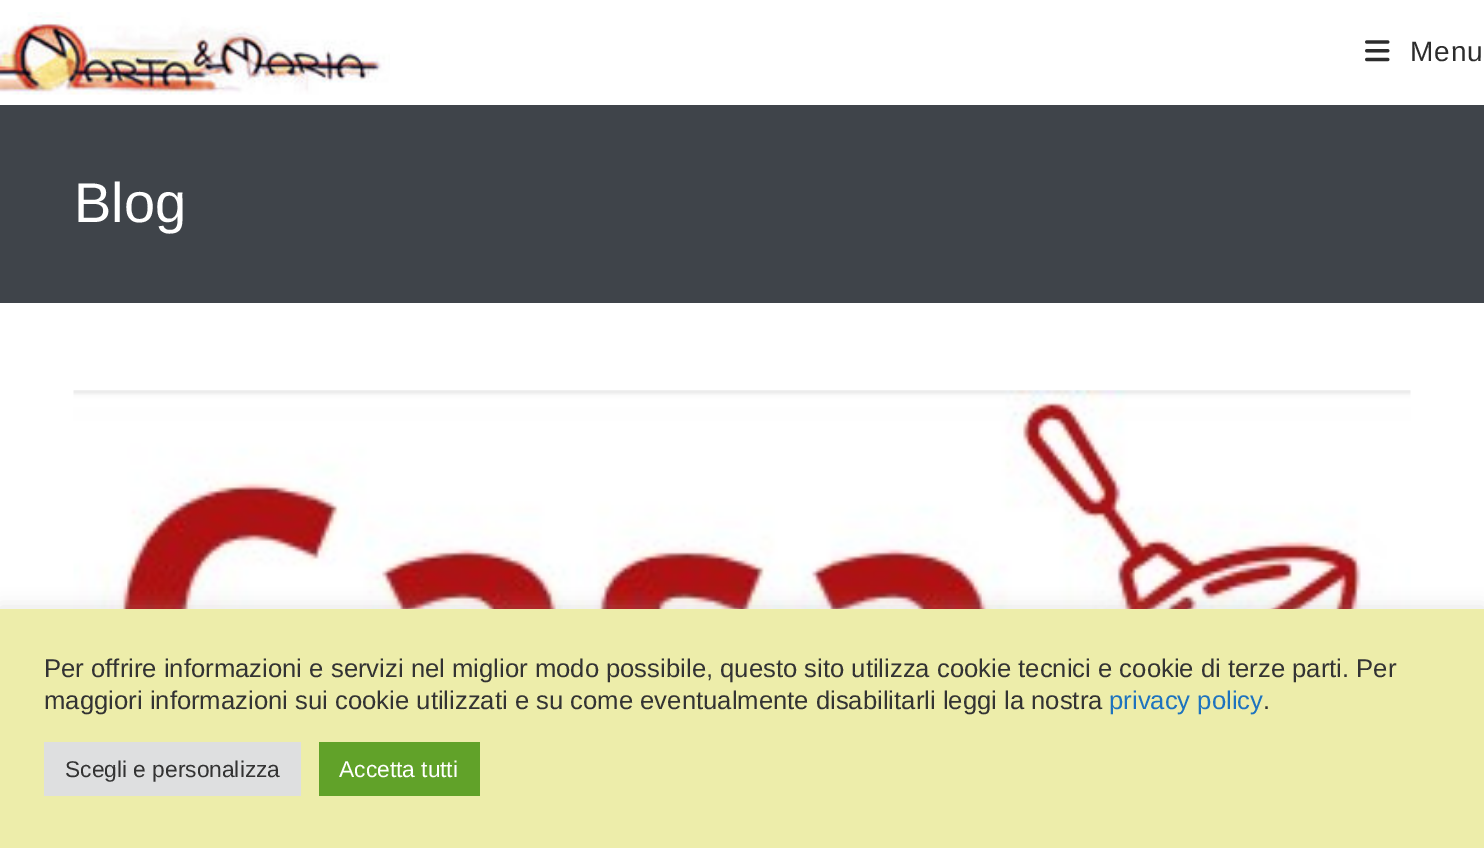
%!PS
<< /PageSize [1484 848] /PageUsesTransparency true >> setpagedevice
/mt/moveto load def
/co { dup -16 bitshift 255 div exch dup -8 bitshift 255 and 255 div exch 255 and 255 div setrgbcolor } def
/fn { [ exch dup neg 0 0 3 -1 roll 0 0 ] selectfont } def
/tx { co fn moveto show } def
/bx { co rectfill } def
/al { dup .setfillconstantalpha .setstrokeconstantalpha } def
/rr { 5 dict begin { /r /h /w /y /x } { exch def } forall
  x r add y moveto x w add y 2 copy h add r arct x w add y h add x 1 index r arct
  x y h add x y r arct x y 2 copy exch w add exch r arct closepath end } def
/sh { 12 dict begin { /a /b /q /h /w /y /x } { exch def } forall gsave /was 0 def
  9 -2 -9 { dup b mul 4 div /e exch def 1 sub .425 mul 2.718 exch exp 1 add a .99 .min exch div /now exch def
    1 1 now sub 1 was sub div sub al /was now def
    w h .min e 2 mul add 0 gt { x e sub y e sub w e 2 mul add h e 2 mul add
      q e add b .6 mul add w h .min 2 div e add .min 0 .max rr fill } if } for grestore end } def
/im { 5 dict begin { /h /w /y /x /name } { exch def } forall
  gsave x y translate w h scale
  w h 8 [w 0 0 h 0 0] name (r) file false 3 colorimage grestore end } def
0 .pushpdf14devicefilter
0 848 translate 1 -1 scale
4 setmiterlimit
0 0 1484 848 16#FFFFFF bx
(media/1.raw) 0 12 390 83 im
(media/2.raw) 1365 40 25 22 im
0 105 1484 198 16#3F444A bx
(media/3.raw) 73 390 1338 219 im
16#ACABAB co
0 607 1484 240 0 9 .3 sh
0 609 1484 239 16#EDEDAA bx
44 742 257 54 16#DEDFE0 bx
319 742 161 54 16#61A229 bx
/LiberationSans-Regular 28 fn
16#2C2C2C co
1410 61 mt 1 0 (Menu) ashow
(Blog) 74 222 /LiberationSans-Regular 56 16#FFFFFF tx
(Per offrire informazioni e servizi nel miglior modo possibile, questo sito utilizza cookie tecnici e cookie di terze parti. Per) 44 677 /LiberationSans-Regular 25.67 16#333333 tx
(maggiori informazioni sui cookie utilizzati e su come eventualmente disabilitarli leggi la nostra) 44 709 /LiberationSans-Regular 25.67 16#333333 tx
(privacy policy) 1109 709 /LiberationSans-Regular 25.67 16#1E73BE tx
(.) 1263 709 /LiberationSans-Regular 25.67 16#333333 tx
(Scegli e personalizza) 65 777 /LiberationSans-Regular 22.75 16#333333 tx
(Accetta tutti) 339 777 /LiberationSans-Regular 22.75 16#FFFFFF tx
.poppdf14devicefilter showpage
